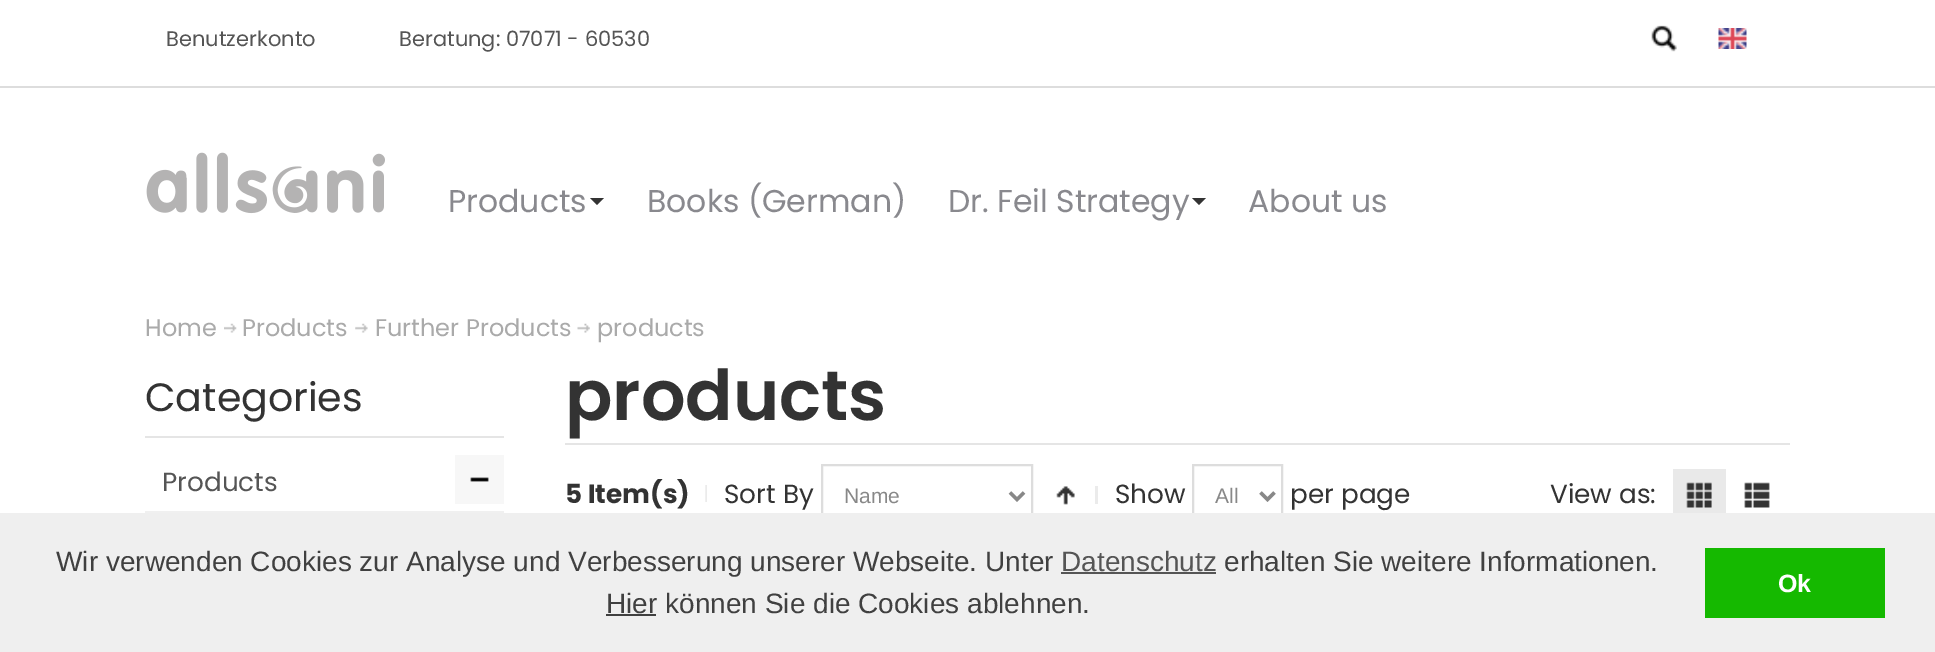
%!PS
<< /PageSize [1935 652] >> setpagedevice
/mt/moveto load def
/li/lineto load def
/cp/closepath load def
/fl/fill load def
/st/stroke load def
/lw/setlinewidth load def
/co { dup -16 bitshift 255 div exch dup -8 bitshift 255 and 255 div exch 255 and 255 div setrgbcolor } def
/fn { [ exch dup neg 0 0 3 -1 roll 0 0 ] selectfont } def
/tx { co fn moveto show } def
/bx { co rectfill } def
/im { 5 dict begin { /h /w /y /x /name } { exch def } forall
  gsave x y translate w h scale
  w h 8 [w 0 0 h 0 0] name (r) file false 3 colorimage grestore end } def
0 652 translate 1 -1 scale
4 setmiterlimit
0 0 1935 652 16#FFFFFF bx
0 86 1935 2 16#DDDDDD bx
(media/1.raw) 1651 25 26 27 im
(media/2.raw) 1718 28 29 21 im
(media/3.raw) 146 152 239 62 im
16#333333 co
590 198 mt 604 198 li 597 205 li cp fl
1192 198 mt 1206 198 li 1199 205 li cp fl
(media/4.raw) 224 323 13 10 im
(media/5.raw) 355 323 13 10 im
(media/6.raw) 577 323 13 10 im
145 436 359 2 16#E5E5E5 bx
145 511 359 2 16#F0F0F0 bx
455 455 49 49 16#F7F7F7 bx
(media/7.raw) 470 477 19 5 im
565 443 1225 2 16#E5E5E5 bx
(media/8.raw) 705 485 2 17 im
1095 486 3 18 16#EBEBEB bx
16#DDDDDD co
2 lw
822 465 210 61 rectstroke
16#888888 co
3.5 lw
1010 492.5 mt 1017 499.5 li 1024 492.5 li st
(media/9.raw) 1056 486 19 19 im
16#DDDDDD co
2 lw
1193 465 89 61 rectstroke
16#888888 co
3.5 lw
1260.5 492.5 mt 1267.5 499.5 li 1274.5 492.5 li st
1673 469 53 44 16#E9E9E9 bx
(media/10.raw) 1686 482 26 26 im
(media/11.raw) 1744 482 26 26 im
0 513 1935 139 16#EFEFEF bx
1061 572 155 2 16#555555 bx
606 614 50 2 16#404040 bx
1705 548 180 70 16#15B900 bx
(Benutzerkonto) 166 46 /Poppins-Regular 21 16#555555 tx
(Beratung: 07071 - 60530) 399 46 /Poppins-Regular 21 16#555555 tx
(Products) 448 212 /Poppins-Regular 31.5 16#89898E tx
(Books \(German\)) 647 212 /Poppins-Regular 31.5 16#89898E tx
(Dr. Feil Strategy) 948 212 /Poppins-Regular 31.5 16#89898E tx
(About us) 1248 212 /Poppins-Regular 31.5 16#89898E tx
(Home) 145 336 /Poppins-Regular 24 16#AAAAAA tx
(Products) 242 336 /Poppins-Regular 24 16#AAAAAA tx
(Further Products) 375 336 /Poppins-Regular 24 16#AAAAAA tx
(products) 597 336 /Poppins-Regular 24 16#AAAAAA tx
(Categories) 145 411 /Poppins-Regular 39.5 16#333333 tx
(Products) 162 491 /Poppins-Regular 26.25 16#555555 tx
(products) 565 420 /Poppins-SemiBold 70 16#333333 tx
(5 Item\(s\)) 565 503 /Poppins-Bold 26.25 16#333333 tx
(Sort By) 724 503 /Poppins-Regular 26.25 16#333333 tx
(Name) 844 503 /LiberationSans-Regular 21 16#888888 tx
(Show) 1115 503 /Poppins-Regular 26.25 16#333333 tx
(All) 1215 503 /LiberationSans-Regular 21 16#888888 tx
(per page) 1290 503 /Poppins-Regular 26.25 16#333333 tx
(View as:) 1550 503 /Poppins-Regular 26.25 16#333333 tx
(Wir verwenden Cookies zur Analyse und Verbesserung unserer Webseite. Unter) 56 571 /LiberationSans-Regular 28 16#404040 tx
(Datenschutz) 1061 571 /LiberationSans-Regular 28 16#555555 tx
(erhalten Sie weitere Informationen.) 1224 571 /LiberationSans-Regular 28 16#404040 tx
(Hier können Sie die Cookies ablehnen.) 606 613 /LiberationSans-Regular 28 16#404040 tx
(Ok) 1778 592 /LiberationSans-Bold 25 16#FFFFFF tx
showpage
